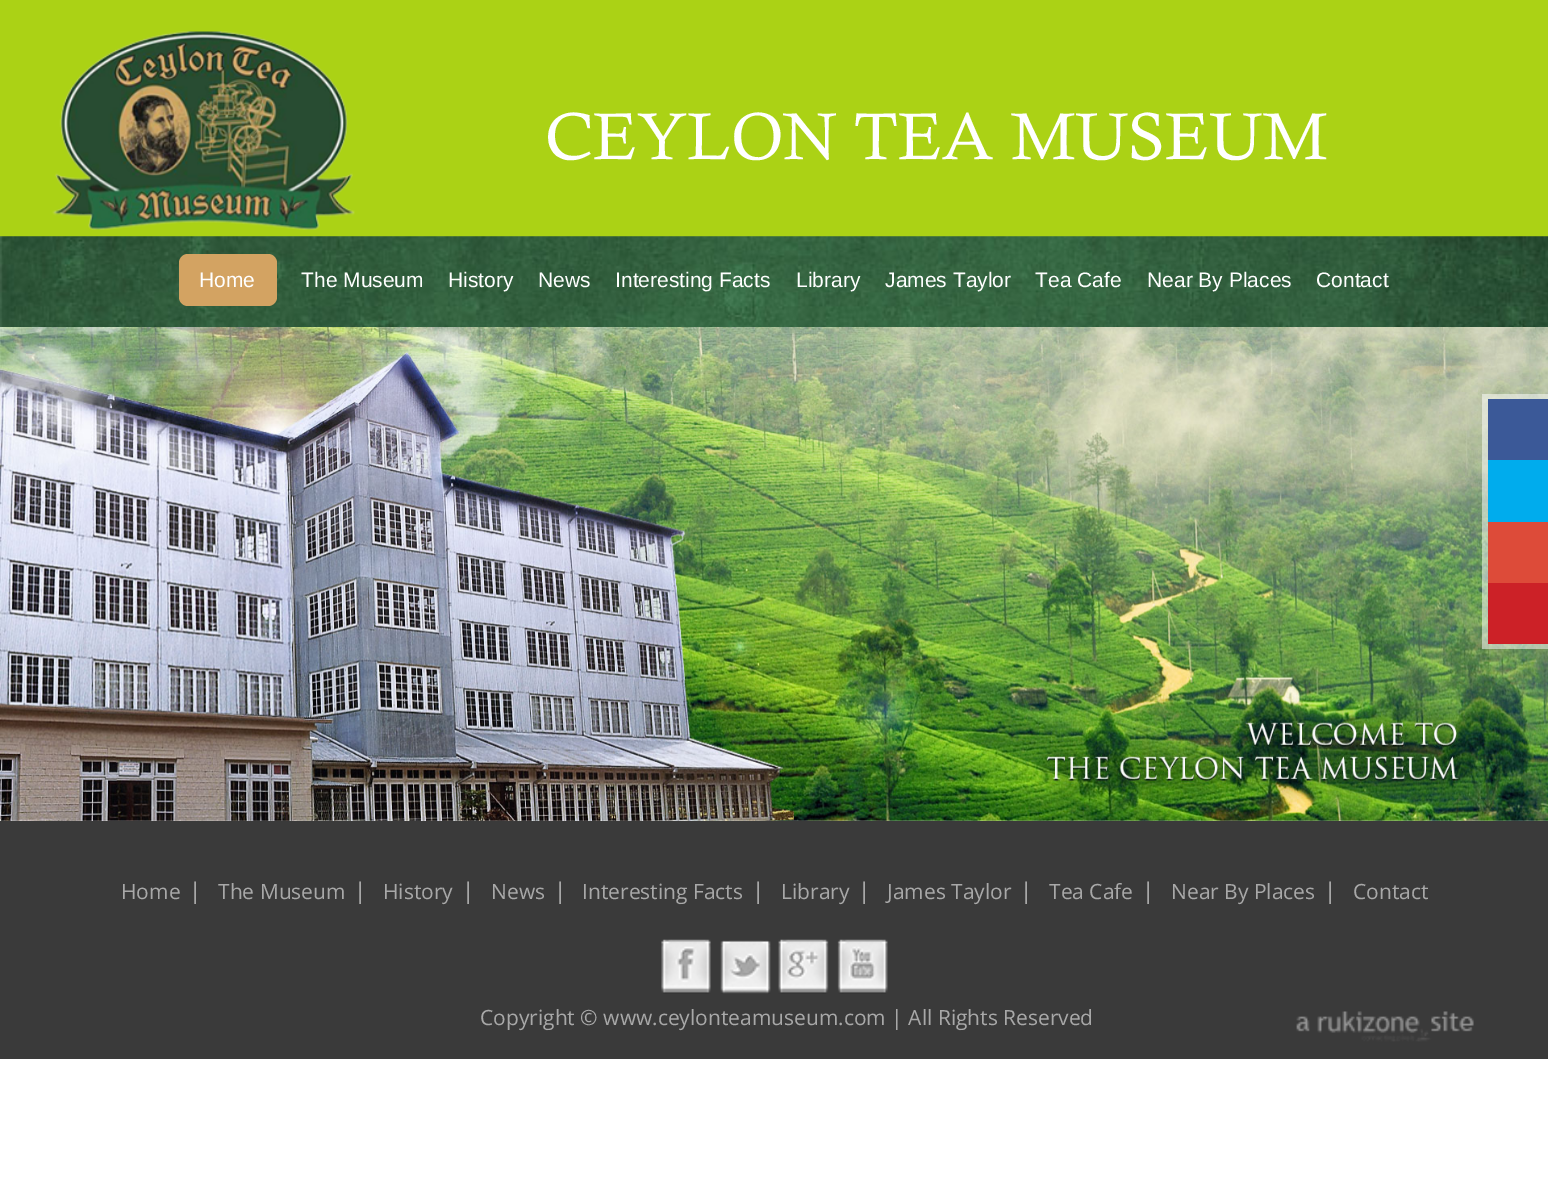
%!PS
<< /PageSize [1548 1187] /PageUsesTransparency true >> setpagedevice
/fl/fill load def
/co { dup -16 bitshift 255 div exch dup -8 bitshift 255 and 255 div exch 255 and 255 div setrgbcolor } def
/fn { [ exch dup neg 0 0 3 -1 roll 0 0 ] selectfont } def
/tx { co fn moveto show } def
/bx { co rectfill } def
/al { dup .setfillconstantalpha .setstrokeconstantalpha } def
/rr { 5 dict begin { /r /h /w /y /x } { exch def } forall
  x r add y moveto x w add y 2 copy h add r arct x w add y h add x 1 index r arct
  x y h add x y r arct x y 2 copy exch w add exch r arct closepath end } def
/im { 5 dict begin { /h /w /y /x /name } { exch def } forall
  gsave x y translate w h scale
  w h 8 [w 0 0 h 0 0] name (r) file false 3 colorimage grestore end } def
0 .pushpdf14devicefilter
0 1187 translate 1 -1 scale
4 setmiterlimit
0 0 1548 1187 16#FFFFFF bx
0 0 1548 237 16#ABD215 bx
(media/1.raw) 52 31 303 199 im
(media/2.raw) 0 236 1548 91 im
16#D3A362 co
179 254 98 52 9 rr fl
(media/3.raw) 0 327 1548 494 im
0.5 al
1482 394 66 255 16#FFFFFF bx
1 al
1488 399 60 61 16#3B5998 bx
1488 460 60 62 16#00ACED bx
1488 522 60 61 16#DD4B39 bx
1488 583 60 61 16#CC2127 bx
0 821 1548 238 16#3A3A3A bx
(media/4.raw) 661 939 50 55 im
(media/5.raw) 720 940 51 54 im
(media/6.raw) 778 939 51 55 im
(media/7.raw) 837 939 51 55 im
(media/8.raw) 1296 1011 178 31 im
(CEYLON TEA MUSEUM) 545 159 /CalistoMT-Regular 66.5 16#FFFFFF tx
(Home) 199 287 /LiberationSans-Regular 21 16#FFFFFF tx
(The Museum) 301 287 /LiberationSans-Regular 21 16#FFFFFF tx
(History) 448 287 /LiberationSans-Regular 21 16#FFFFFF tx
(News) 538 287 /LiberationSans-Regular 21 16#FFFFFF tx
(Interesting Facts) 615 287 /LiberationSans-Regular 21 16#FFFFFF tx
(Library) 796 287 /LiberationSans-Regular 21 16#FFFFFF tx
(James Taylor) 885 287 /LiberationSans-Regular 21 16#FFFFFF tx
(Tea Cafe) 1035 287 /LiberationSans-Regular 21 16#FFFFFF tx
(Near By Places) 1147 287 /LiberationSans-Regular 21 16#FFFFFF tx
(Contact) 1316 287 /LiberationSans-Regular 21 16#FFFFFF tx
(Home) 121 899 /OpenSans-Regular 21 16#A8A8A8 tx
(|) 192 899 /LiberationSans-Regular 24 16#A8A8A8 tx
(The Museum) 218 899 /OpenSans-Regular 21 16#A8A8A8 tx
(|) 357 899 /LiberationSans-Regular 24 16#A8A8A8 tx
(History) 383 899 /OpenSans-Regular 21 16#A8A8A8 tx
(|) 465 899 /LiberationSans-Regular 24 16#A8A8A8 tx
(News) 491 899 /OpenSans-Regular 21 16#A8A8A8 tx
(|) 557 899 /LiberationSans-Regular 24 16#A8A8A8 tx
(Interesting Facts) 582 899 /OpenSans-Regular 21 16#A8A8A8 tx
(|) 755 899 /LiberationSans-Regular 24 16#A8A8A8 tx
(Library) 781 899 /OpenSans-Regular 21 16#A8A8A8 tx
(|) 861 899 /LiberationSans-Regular 24 16#A8A8A8 tx
(James Taylor) 887 899 /OpenSans-Regular 21 16#A8A8A8 tx
(|) 1023 899 /LiberationSans-Regular 24 16#A8A8A8 tx
(Tea Cafe) 1049 899 /OpenSans-Regular 21 16#A8A8A8 tx
(|) 1145 899 /LiberationSans-Regular 24 16#A8A8A8 tx
(Near By Places) 1171 899 /OpenSans-Regular 21 16#A8A8A8 tx
(|) 1327 899 /LiberationSans-Regular 24 16#A8A8A8 tx
(Contact) 1353 899 /OpenSans-Regular 21 16#A8A8A8 tx
(Copyright © www.ceylonteamuseum.com | All Rights Reserved) 480 1025 /OpenSans-Regular 21 16#A8A8A8 tx
.poppdf14devicefilter showpage
